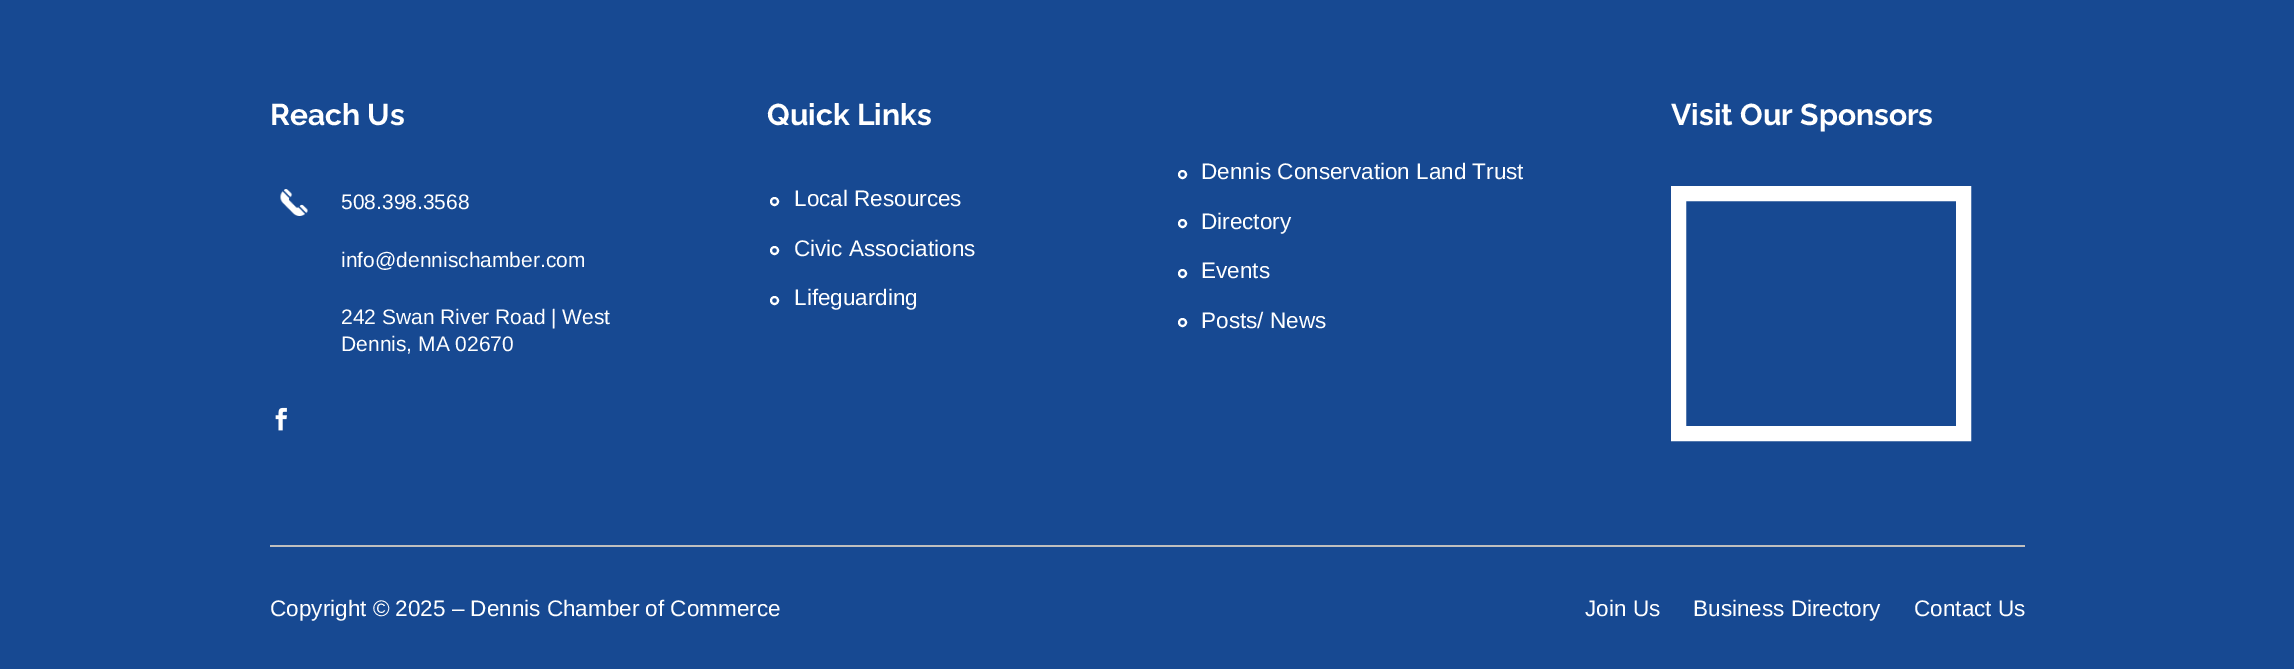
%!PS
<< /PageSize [2294 669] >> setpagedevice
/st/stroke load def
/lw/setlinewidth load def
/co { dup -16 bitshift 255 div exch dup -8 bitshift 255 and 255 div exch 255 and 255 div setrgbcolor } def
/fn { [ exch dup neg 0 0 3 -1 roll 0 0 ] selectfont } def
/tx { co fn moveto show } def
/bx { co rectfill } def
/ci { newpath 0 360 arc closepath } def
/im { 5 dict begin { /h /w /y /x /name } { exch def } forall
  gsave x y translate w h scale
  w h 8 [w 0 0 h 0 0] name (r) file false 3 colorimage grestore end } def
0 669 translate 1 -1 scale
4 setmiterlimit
0 0 2294 669 16#174992 bx
270 545 1755 2 16#BFBFBF bx
(media/1.raw) 280 189 28 27 im
(media/2.raw) 275 407 12 24 im
16#FFFFFF co
2 lw
774.5 201.5 3.5 ci st
774.5 250.5 3.5 ci st
774.5 300.5 3.5 ci st
15 lw
1678.5 193.5 285 240 rectstroke
2 lw
1182.5 174.5 3.5 ci st
1182.5 223.5 3.5 ci st
1182.5 273.5 3.5 ci st
1182.5 322.5 3.5 ci st
(Reach Us) 270 125 /Raleway-Bold 30 16#FFFFFF tx
(508.398.3568) 341 209 /LiberationSans-Regular 21 16#FFFFFF tx
(info@dennischamber.com) 341 267 /LiberationSans-Regular 21 16#FFFFFF tx
(242 Swan River Road | West) 341 324 /LiberationSans-Regular 21 16#FFFFFF tx
(Dennis, MA 02670) 341 351 /LiberationSans-Regular 21 16#FFFFFF tx
(Quick Links) 767 125 /Raleway-Bold 30 16#FFFFFF tx
(Local Resources) 794 206 /LiberationSans-Regular 22.5 16#FFFFFF tx
(Civic Associations) 794 256 /LiberationSans-Regular 22.5 16#FFFFFF tx
(Lifeguarding) 794 305 /LiberationSans-Regular 22.5 16#FFFFFF tx
(Visit Our Sponsors) 1671 125 /Raleway-Bold 30 16#FFFFFF tx
(Dennis Conservation Land Trust) 1201 179 /LiberationSans-Regular 22.5 16#FFFFFF tx
(Directory) 1201 229 /LiberationSans-Regular 22.5 16#FFFFFF tx
(Events) 1201 278 /LiberationSans-Regular 22.5 16#FFFFFF tx
(Posts/ News) 1201 328 /LiberationSans-Regular 22.5 16#FFFFFF tx
(Copyright © 2025 – Dennis Chamber of Commerce) 270 616 /LiberationSans-Regular 22.5 16#FFFFFF tx
(Join Us) 1585 616 /LiberationSans-Regular 22.5 16#FFFFFF tx
(Business Directory) 1693 616 /LiberationSans-Regular 22.5 16#FFFFFF tx
(Contact Us) 1914 616 /LiberationSans-Regular 22.5 16#FFFFFF tx
showpage
